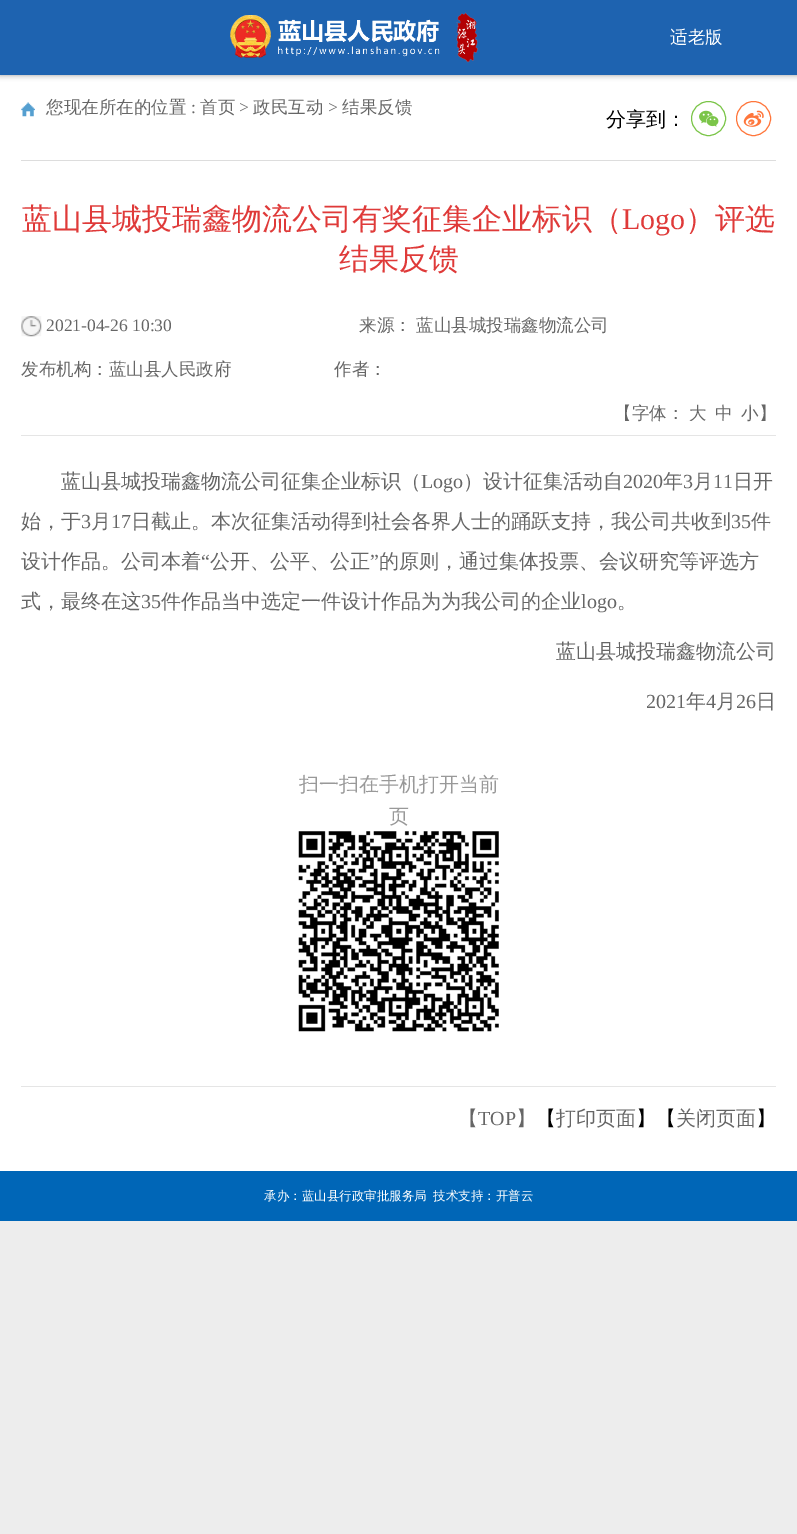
%!PS
<< /PageSize [797 1534] /PageUsesTransparency true >> setpagedevice
/st/stroke load def
/co { dup -16 bitshift 255 div exch dup -8 bitshift 255 and 255 div exch 255 and 255 div setrgbcolor } def
/fn { [ exch dup neg 0 0 3 -1 roll 0 0 ] selectfont } def
/tx { co fn moveto show } def
/bx { co rectfill } def
/al { dup .setfillconstantalpha .setstrokeconstantalpha } def
/ci { newpath 0 360 arc closepath } def
/rr { 5 dict begin { /r /h /w /y /x } { exch def } forall
  x r add y moveto x w add y 2 copy h add r arct x w add y h add x 1 index r arct
  x y h add x y r arct x y 2 copy exch w add exch r arct closepath end } def
/sh { 12 dict begin { /a /b /q /h /w /y /x } { exch def } forall gsave /was 0 def
  9 -2 -9 { dup b mul 4 div /e exch def 1 sub .425 mul 2.718 exch exp 1 add a .99 .min exch div /now exch def
    1 1 now sub 1 was sub div sub al /was now def
    w h .min e 2 mul add 0 gt { x e sub y e sub w e 2 mul add h e 2 mul add
      q e add b .6 mul add w h .min 2 div e add .min 0 .max rr fill } if } for grestore end } def
/im { 5 dict begin { /h /w /y /x /name } { exch def } forall
  gsave x y translate w h scale
  w h 8 [w 0 0 h 0 0] name (r) file false 3 colorimage grestore end } def
0 .pushpdf14devicefilter
0 1534 translate 1 -1 scale
4 setmiterlimit
0 0 797 1534 16#EDEDED bx
0 75 797 1096 16#FFFFFF bx
16#000000 co
0 0 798 75 0 3 .4 sh
0 0 797 75 16#1E63B0 bx
(media/1.raw) 230 12 248 51 im
21 160 755 1 16#DDDDDD bx
(media/2.raw) 21 102 14 15 im
16#7BC549 co
708.5 118.5 17 ci st
(media/3.raw) 699 110 20 17 im
16#FF763B co
753.5 118.5 17 ci st
(media/4.raw) 743 110 21 17 im
21 435 755 1 16#E5E5E5 bx
(media/5.raw) 21 316 21 21 im
(media/6.raw) 298 831 201 201 im
21 1086 755 1 16#E5E5E5 bx
0 1171 797 50 16#0066B7 bx
(适老版) 670 43 /WenQuanYiZenHei-Medium 17.5 16#FFFFFF tx
(您现在所在的位置) 46 113 /WenQuanYiZenHei-Medium 17.5 16#666666 tx
(:) 191 113 /LiberationSerif-Regular 17.5 16#666666 tx
(首页) 200 113 /WenQuanYiZenHei-Medium 17.5 16#666666 tx
(>) 239 113 /LiberationSerif-Regular 17.5 16#666666 tx
(政民互动) 253 113 /WenQuanYiZenHei-Medium 17.5 16#666666 tx
(>) 328 113 /LiberationSerif-Regular 17.5 16#666666 tx
(结果反馈) 342 113 /WenQuanYiZenHei-Medium 17.5 16#666666 tx
(分享到：) 606 126 /WenQuanYiZenHei-Medium 20 16#000000 tx
(蓝山县城投瑞鑫物流公司有奖征集企业标识（) 22 229 /WenQuanYiZenHei-Medium 30 16#DF3A39 tx
(Logo) 622 229 /LiberationSerif-Regular 30 16#DF3A39 tx
(）评选) 685 229 /WenQuanYiZenHei-Medium 30 16#DF3A39 tx
(结果反馈) 339 269 /WenQuanYiZenHei-Medium 30 16#DF3A39 tx
(2021-04-26 10:30) 46 331 /LiberationSerif-Regular 17.5 16#666666 tx
(来源：) 359 331 /WenQuanYiZenHei-Medium 17.5 16#666666 tx
(蓝山县城投瑞鑫物流公司) 416 331 /WenQuanYiZenHei-Medium 17.5 16#666666 tx
(发布机构：蓝山县人民政府) 21 375 /WenQuanYiZenHei-Medium 17.5 16#666666 tx
(作者：) 334 375 /WenQuanYiZenHei-Medium 17.5 16#666666 tx
(【字体：) 614 419 /WenQuanYiZenHei-Medium 17.5 16#666666 tx
(大) 689 419 /WenQuanYiZenHei-Medium 17.5 16#666666 tx
(中) 715 419 /WenQuanYiZenHei-Medium 17.5 16#666666 tx
(小】) 741 419 /WenQuanYiZenHei-Medium 17.5 16#666666 tx
(蓝山县城投瑞鑫物流公司征集企业标识（) 61 488 /WenQuanYiZenHei-Medium 20 16#666666 tx
(Logo) 421 488 /LiberationSerif-Regular 20 16#666666 tx
(）设计征集活动自) 463 488 /WenQuanYiZenHei-Medium 20 16#666666 tx
(2020) 623 488 /LiberationSerif-Regular 20 16#666666 tx
(年) 663 488 /WenQuanYiZenHei-Medium 20 16#666666 tx
(3) 683 488 /LiberationSerif-Regular 20 16#666666 tx
(月) 693 488 /WenQuanYiZenHei-Medium 20 16#666666 tx
(11) 713 488 /LiberationSerif-Regular 20 16#666666 tx
(日开) 733 488 /WenQuanYiZenHei-Medium 20 16#666666 tx
(始，于) 21 528 /WenQuanYiZenHei-Medium 20 16#666666 tx
(3) 81 528 /LiberationSerif-Regular 20 16#666666 tx
(月) 91 528 /WenQuanYiZenHei-Medium 20 16#666666 tx
(17) 111 528 /LiberationSerif-Regular 20 16#666666 tx
(日截止。本次征集活动得到社会各界人士的踊跃支持，我公司共收到) 131 528 /WenQuanYiZenHei-Medium 20 16#666666 tx
(35) 731 528 /LiberationSerif-Regular 20 16#666666 tx
(件) 751 528 /WenQuanYiZenHei-Medium 20 16#666666 tx
(设计作品。公司本着) 21 568 /WenQuanYiZenHei-Medium 20 16#666666 tx
(“) 201 568 /LiberationSerif-Regular 20 16#666666 tx
(公开、公平、公正) 210 568 /WenQuanYiZenHei-Medium 20 16#666666 tx
(”) 370 568 /LiberationSerif-Regular 20 16#666666 tx
(的原则，通过集体投票、会议研究等评选方) 379 568 /WenQuanYiZenHei-Medium 20 16#666666 tx
(式，最终在这) 21 608 /WenQuanYiZenHei-Medium 20 16#666666 tx
(35) 141 608 /LiberationSerif-Regular 20 16#666666 tx
(件作品当中选定一件设计作品为为我公司的企业) 161 608 /WenQuanYiZenHei-Medium 20 16#666666 tx
(logo) 581 608 /LiberationSerif-Regular 20 16#666666 tx
(。) 617 608 /WenQuanYiZenHei-Medium 20 16#666666 tx
(蓝山县城投瑞鑫物流公司) 556 658 /WenQuanYiZenHei-Medium 20 16#666666 tx
(2021) 646 708 /LiberationSerif-Regular 20 16#666666 tx
(年) 686 708 /WenQuanYiZenHei-Medium 20 16#666666 tx
(4) 706 708 /LiberationSerif-Regular 20 16#666666 tx
(月) 716 708 /WenQuanYiZenHei-Medium 20 16#666666 tx
(26) 736 708 /LiberationSerif-Regular 20 16#666666 tx
(日) 756 708 /WenQuanYiZenHei-Medium 20 16#666666 tx
(扫一扫在手机打开当前) 299 791 /WenQuanYiZenHei-Medium 20 16#999999 tx
(页) 389 823 /WenQuanYiZenHei-Medium 20 16#999999 tx
(【) 458 1125 /WenQuanYiZenHei-Medium 20 16#666666 tx
(TOP) 478 1125 /LiberationSerif-Regular 20 16#666666 tx
(】) 516 1125 /WenQuanYiZenHei-Medium 20 16#666666 tx
(【) 536 1125 /WenQuanYiZenHei-Medium 20 16#000000 tx
(打印页面) 556 1125 /WenQuanYiZenHei-Medium 20 16#666666 tx
(】【) 636 1125 /WenQuanYiZenHei-Medium 20 16#000000 tx
(关闭页面) 676 1125 /WenQuanYiZenHei-Medium 20 16#666666 tx
(】) 756 1125 /WenQuanYiZenHei-Medium 20 16#000000 tx
(承办：蓝山县行政审批服务局) 264 1200 /WenQuanYiZenHei-Medium 12.5 16#FFFFFF tx
(技术支持：开普云) 433 1200 /WenQuanYiZenHei-Medium 12.5 16#FFFFFF tx
.poppdf14devicefilter showpage
